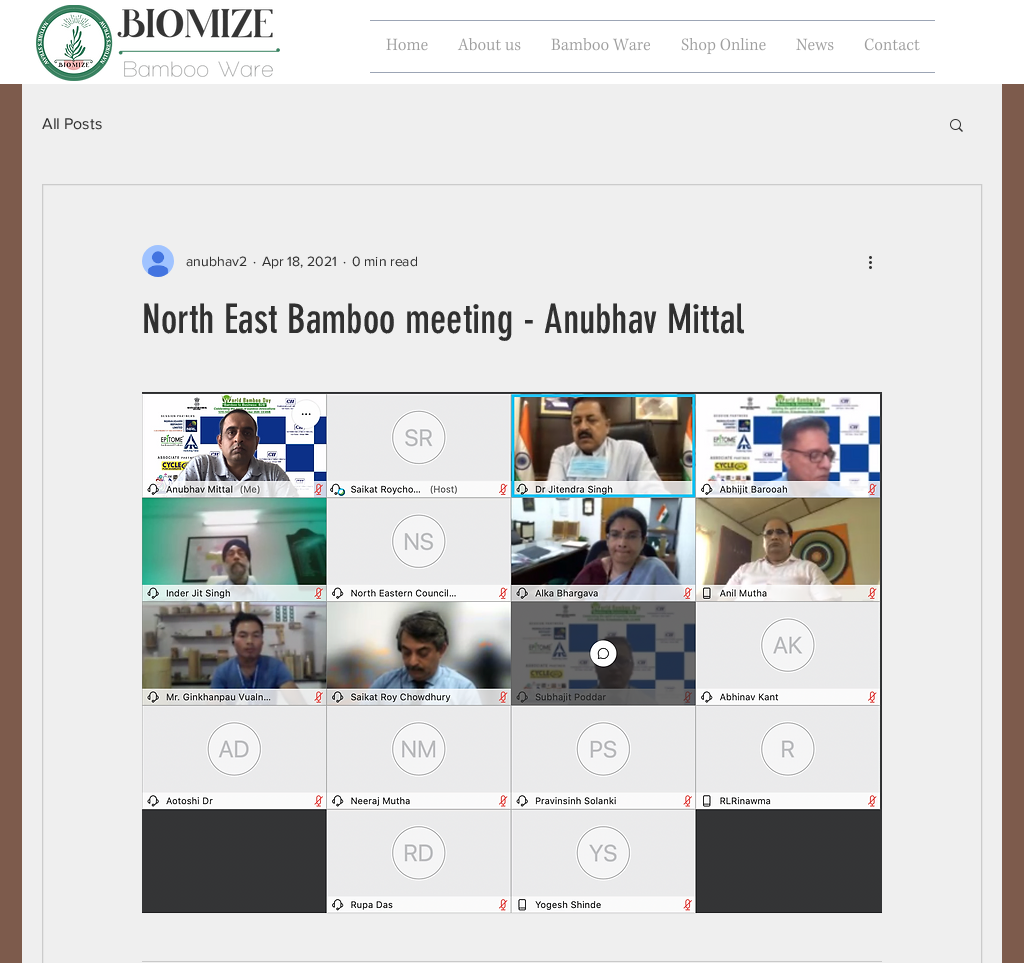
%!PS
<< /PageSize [1024 963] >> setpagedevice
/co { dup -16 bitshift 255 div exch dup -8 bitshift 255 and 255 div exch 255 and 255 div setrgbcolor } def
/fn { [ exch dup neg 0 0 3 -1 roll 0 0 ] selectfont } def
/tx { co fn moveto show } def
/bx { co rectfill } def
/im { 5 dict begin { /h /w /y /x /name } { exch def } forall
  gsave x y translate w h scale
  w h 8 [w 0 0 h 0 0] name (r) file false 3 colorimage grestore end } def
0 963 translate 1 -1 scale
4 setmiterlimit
0 0 1024 963 16#7D5B4C bx
0 0 1024 84 16#FFFFFF bx
(media/1.raw) 36 5 244 76 im
370 20 565 1 16#9CA5B5 bx
370 72 565 1 16#9CA5B5 bx
(media/2.raw) 386 38 42 13 im
(media/3.raw) 457 38 64 13 im
(media/4.raw) 551 38 99 13 im
(media/5.raw) 681 38 85 17 im
(media/6.raw) 796 38 38 13 im
(media/7.raw) 864 38 56 13 im
22 84 980 879 16#EFEFEF bx
(media/8.raw) 950 119 13 13 im
16#CBCBCB co
42.5 184.5 939 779 rectstroke
(media/9.raw) 142 245 32 32 im
(media/10.raw) 869 256 3 13 im
(media/11.raw) 142 392 740 522 im
142 961 740 1 16#C9C9C9 bx
(All Posts) 42 129 /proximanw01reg-Regular 16 16#303030 tx
(anubhav2) 186 266 /proximanw01reg-Regular 14 16#303030 tx
(·) 253 266 /proximanw01reg-Regular 14 16#303030 tx
(Apr 18, 2021) 262 266 /proximanw01reg-Regular 14 16#303030 tx
(·) 343 266 /proximanw01reg-Regular 14 16#303030 tx
(0 min read) 352 266 /proximanw01reg-Regular 14 16#303030 tx
(North East Bamboo meeting - Anubhav Mittal) 142 333 /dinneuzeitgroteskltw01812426-Regular 40 16#303030 tx
showpage
